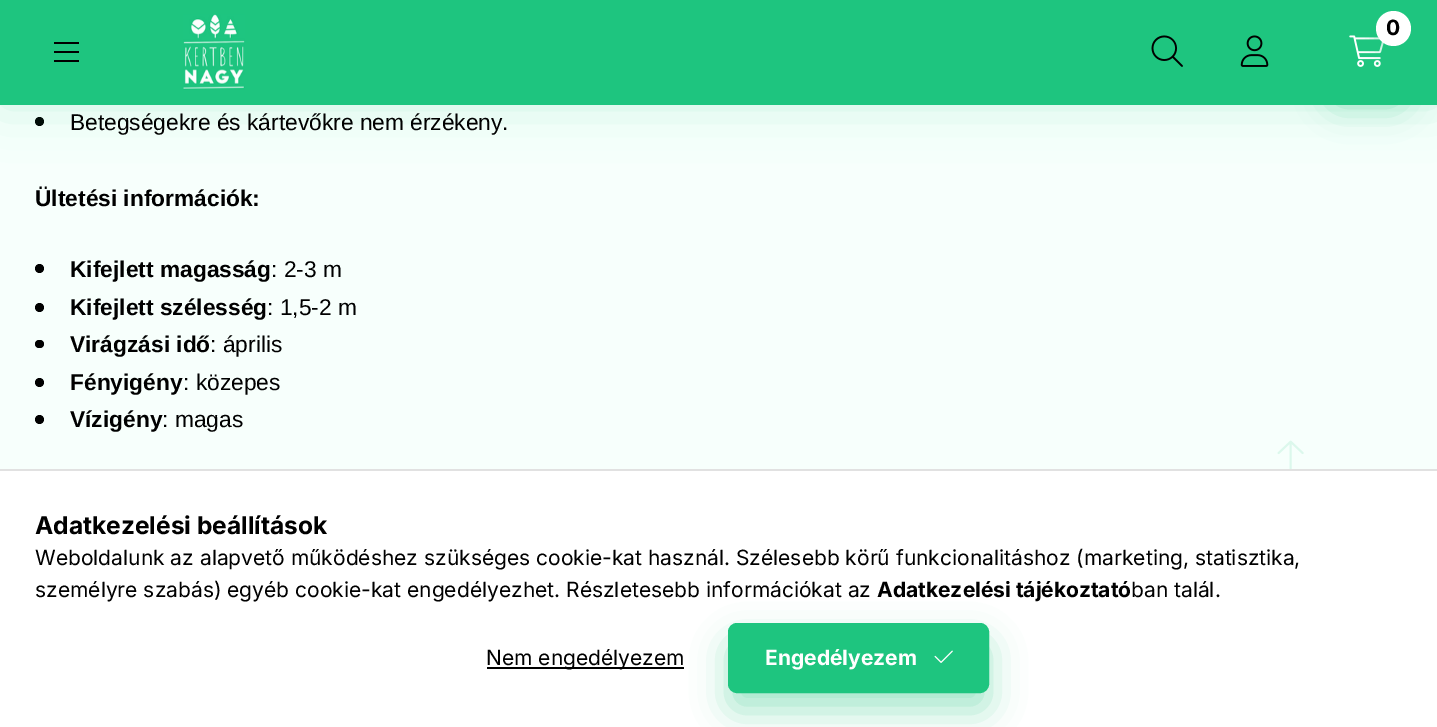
%!PS
<< /PageSize [1437 727] /PageUsesTransparency true >> setpagedevice
/mt/moveto load def
/li/lineto load def
/ct/curveto load def
/cp/closepath load def
/fl/fill load def
/st/stroke load def
/gs/gsave load def
/gr/grestore load def
/lw/setlinewidth load def
/co { dup -16 bitshift 255 div exch dup -8 bitshift 255 and 255 div exch 255 and 255 div setrgbcolor } def
/fn { [ exch dup neg 0 0 3 -1 roll 0 0 ] selectfont } def
/tx { co fn moveto show } def
/bx { co rectfill } def
/al { dup .setfillconstantalpha .setstrokeconstantalpha } def
/ci { newpath 0 360 arc closepath } def
/rr { 5 dict begin { /r /h /w /y /x } { exch def } forall
  x r add y moveto x w add y 2 copy h add r arct x w add y h add x 1 index r arct
  x y h add x y r arct x y 2 copy exch w add exch r arct closepath end } def
/sh { 12 dict begin { /a /b /q /h /w /y /x } { exch def } forall gsave /was 0 def
  9 -2 -9 { dup b mul 4 div /e exch def 1 sub .425 mul 2.718 exch exp 1 add a .99 .min exch div /now exch def
    1 1 now sub 1 was sub div sub al /was now def
    w h .min e 2 mul add 0 gt { x e sub y e sub w e 2 mul add h e 2 mul add
      q e add b .6 mul add w h .min 2 div e add .min 0 .max rr fill } if } for grestore end } def
/im { 5 dict begin { /h /w /y /x /name } { exch def } forall
  gsave x y translate w h scale
  w h 8 [w 0 0 h 0 0] name (r) file false 3 colorimage grestore end } def
0 .pushpdf14devicefilter
0 727 translate 1 -1 scale
4 setmiterlimit
0 0 1437 727 16#F7FFFC bx
16#000000 co
39.5 121.5 4.5 ci fl
16#1EC57F co
0 0 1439 105 0 26 .2 sh
0 0 1437 105 16#1EC57F bx
54 42 25 2 16#000000 bx
54 51 25 2 16#000000 bx
54 60 25 2 16#000000 bx
(media/1.raw) 183 14 62 76 im
gs
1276 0 mt 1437 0 li 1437 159 li 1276 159 li cp 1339 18 mt 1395 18 li 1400 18 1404 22 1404 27 ct 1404 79 li 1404 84 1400 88 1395 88 ct 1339 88 li 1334 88 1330 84 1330 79 ct 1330 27 li 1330 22 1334 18 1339 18 ct cp eoclip newpath
16#1EC57F co
1330 35 74 70 9 17.5 .4 sh
gr
(media/2.raw) 1349 35 35 32 im
16#1EC57F co
1376 19 35 35 17.5 9 .4 sh
16#FFFFFF co
1393.5 28.5 17.5 ci fl
(media/3.raw) 1151 35 32 32 im
(media/4.raw) 1240 35 29 32 im
16#000000 co
39.5 268.5 4.5 ci fl
39.5 307.5 4.5 ci fl
35 340 9 8 4 rr fl
39.5 382.5 4.5 ci fl
39.5 419.5 4.5 ci fl
(media/5.raw) 1277 440 27 29 im
0 471 1437 256 16#FFFFFF bx
0 469 1437 2 16#E1E1E1 bx
487 667 197 2 16#000000 bx
16#1EC57F co
728 641 261 70 9 17.5 .4 sh
729 624 259 68 8 rr gs fl gr
2 lw
st
(media/6.raw) 934 650 19 13 im
(0) 1386 35 /Inter-Bold 21 16#000000 tx
(Betegségekre és kártevőkre nem érzékeny.) 70 130 /LiberationSans-Regular 22.75 16#000000 tx
(Ültetési információk:) 35 206 /LiberationSans-Bold 22.75 16#000000 tx
(Kifejlett magasság) 70 277 /LiberationSans-Bold 22.75 16#000000 tx
(: 2-3 m) 271 277 /LiberationSans-Regular 22.75 16#000000 tx
(Kifejlett szélesség) 70 315 /LiberationSans-Bold 22.75 16#000000 tx
(: 1,5-2 m) 267 315 /LiberationSans-Regular 22.75 16#000000 tx
(Virágzási idő) 70 352 /LiberationSans-Bold 22.75 16#000000 tx
(: április) 210 352 /LiberationSans-Regular 22.75 16#000000 tx
(Fényigény) 70 390 /LiberationSans-Bold 22.75 16#000000 tx
(: közepes) 183 390 /LiberationSans-Regular 22.75 16#000000 tx
(Vízigény) 70 427 /LiberationSans-Bold 22.75 16#000000 tx
(: magas) 162 427 /LiberationSans-Regular 22.75 16#000000 tx
(Adatkezelési beállítások) 35 534 /Inter-Bold 24.5 16#000000 tx
(Weboldalunk az alapvető működéshez szükséges cookie-kat használ. Szélesebb körű funkcionalitáshoz \(marketing, statisztika,) 35 565 /Inter-Regular 21 16#000000 tx
(személyre szabás\) egyéb cookie-kat engedélyezhet. Részletesebb információkat az) 35 597 /Inter-Regular 21 16#000000 tx
(Adatkezelési tájékoztató) 877 597 /Inter-Bold 21 16#000000 tx
(ban talál.) 1131 597 /Inter-Regular 21 16#000000 tx
(Nem engedélyezem) 486 665 /Inter-Regular 21 16#000000 tx
(Engedélyezem) 765 665 /Inter-Bold 21 16#FFFFFF tx
.poppdf14devicefilter showpage
